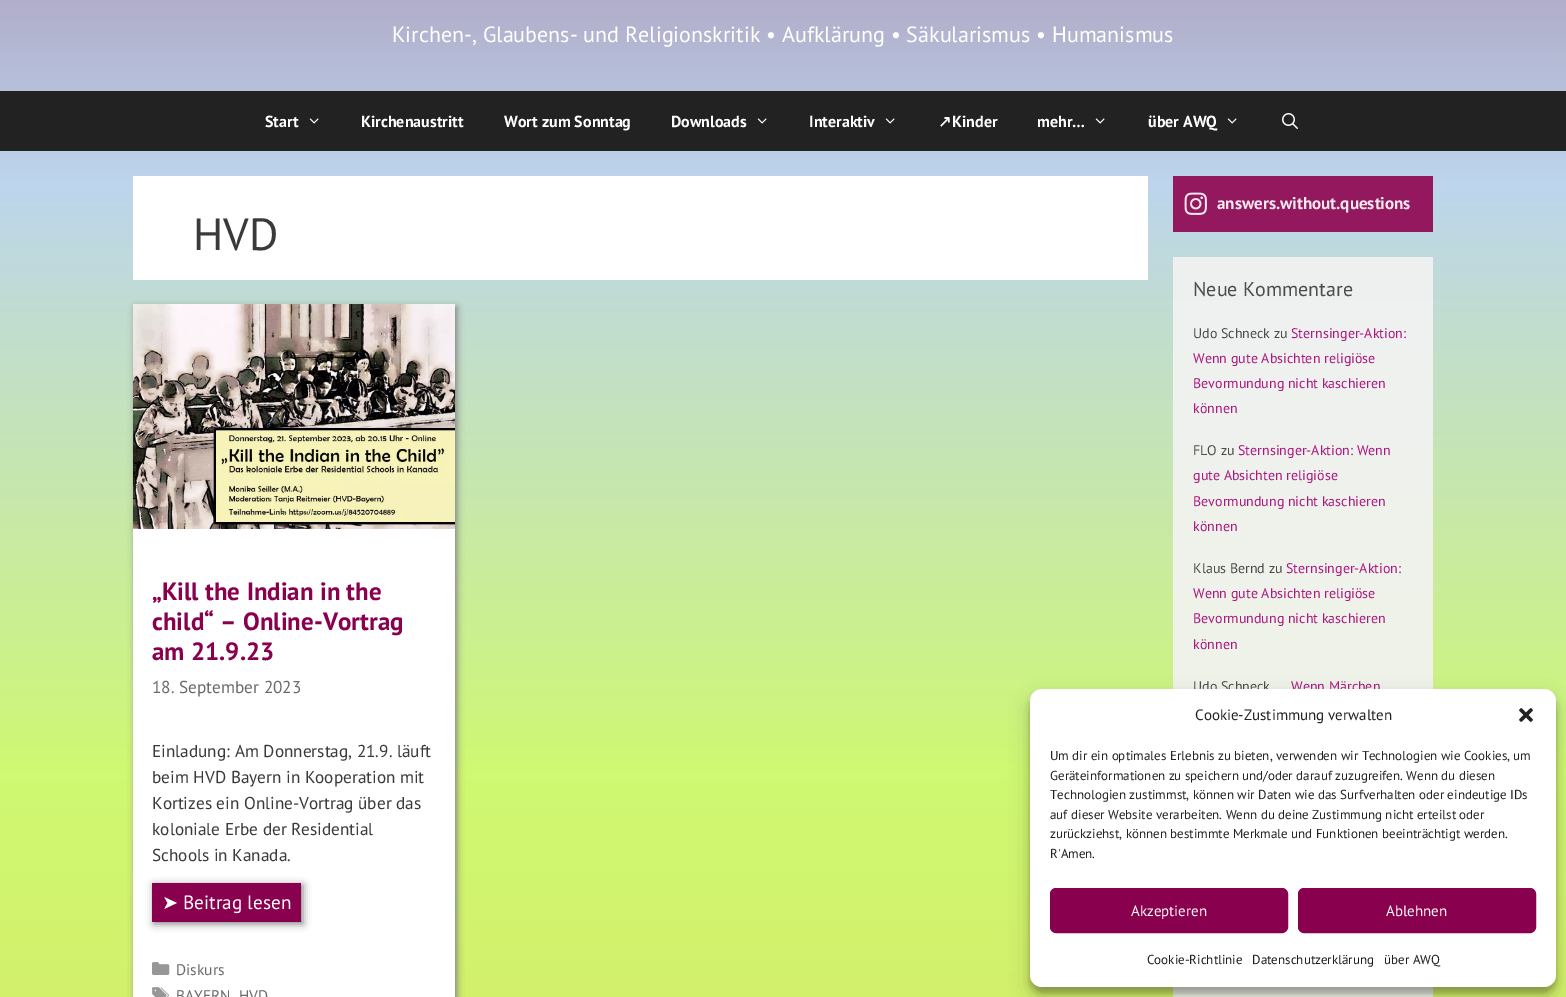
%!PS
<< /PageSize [1566 997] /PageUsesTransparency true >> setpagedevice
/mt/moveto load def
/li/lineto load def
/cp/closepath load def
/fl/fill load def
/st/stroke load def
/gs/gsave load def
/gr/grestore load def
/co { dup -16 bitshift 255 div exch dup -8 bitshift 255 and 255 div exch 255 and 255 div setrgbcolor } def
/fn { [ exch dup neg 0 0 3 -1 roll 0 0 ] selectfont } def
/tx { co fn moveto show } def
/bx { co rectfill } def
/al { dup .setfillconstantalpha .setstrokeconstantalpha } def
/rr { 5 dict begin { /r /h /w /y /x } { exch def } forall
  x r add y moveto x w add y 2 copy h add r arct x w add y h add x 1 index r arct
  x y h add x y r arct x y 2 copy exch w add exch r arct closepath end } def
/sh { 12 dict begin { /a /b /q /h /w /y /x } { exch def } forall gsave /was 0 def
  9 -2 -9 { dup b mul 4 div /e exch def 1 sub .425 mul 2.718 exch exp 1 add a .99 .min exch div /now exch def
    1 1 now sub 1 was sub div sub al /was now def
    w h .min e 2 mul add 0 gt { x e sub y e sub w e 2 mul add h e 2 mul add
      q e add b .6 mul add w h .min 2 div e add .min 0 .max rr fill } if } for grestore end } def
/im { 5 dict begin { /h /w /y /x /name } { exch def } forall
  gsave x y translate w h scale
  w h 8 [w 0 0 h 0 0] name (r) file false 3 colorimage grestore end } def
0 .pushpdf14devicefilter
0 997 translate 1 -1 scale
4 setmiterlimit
0 0 1566 997 16#FFFFFF bx
gs 0 0 mt 1566 0 li 1566 997 li 0 997 li cp clip newpath
<< /ShadingType 2 /ColorSpace /DeviceRGB /Coords [783 -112 783 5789] /Extend [true true] /Function << /FunctionType 3 /Domain [0 1] /Functions [<< /FunctionType 2 /Domain [0 1] /C0 [.667 .588 .71] /C1 [.741 .835 .929] /N 1 >> << /FunctionType 2 /Domain [0 1] /C0 [.741 .835 .929] /C1 [.812 .976 .447] /N 1 >> << /FunctionType 2 /Domain [0 1] /C0 [.812 .976 .447] /C1 [.878 .843 .341] /N 1 >> << /FunctionType 2 /Domain [0 1] /C0 [.878 .843 .341] /C1 [.827 .659 .263] /N 1 >> << /FunctionType 2 /Domain [0 1] /C0 [.827 .659 .263] /C1 [.808 .655 .647] /N 1 >> << /FunctionType 2 /Domain [0 1] /C0 [.808 .655 .647] /C1 [.769 .576 .698] /N 1 >> << /FunctionType 2 /Domain [0 1] /C0 [.769 .576 .698] /C1 [.376 .392 .459] /N 1 >>] /Bounds [.05 .15 .3 .42 .59 .77] /Encode [0 1 0 1 0 1 0 1 0 1 0 1 0 1] >> >> shfill gr
gs 1173 987 mt 1433 987 li 1433 997 li 1173 997 li cp clip newpath
<< /ShadingType 2 /ColorSpace /DeviceRGB /Coords [783 -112 783 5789] /Extend [true true] /Function << /FunctionType 3 /Domain [0 1] /Functions [<< /FunctionType 2 /Domain [0 1] /C0 [.925 .918 .929] /C1 [.933 .941 .949] /N 1 >> << /FunctionType 2 /Domain [0 1] /C0 [.933 .941 .949] /C1 [.937 .957 .902] /N 1 >> << /FunctionType 2 /Domain [0 1] /C0 [.937 .957 .902] /C1 [.945 .941 .89] /N 1 >> << /FunctionType 2 /Domain [0 1] /C0 [.945 .941 .89] /C1 [.941 .925 .882] /N 1 >> << /FunctionType 2 /Domain [0 1] /C0 [.941 .925 .882] /C1 [.937 .922 .922] /N 1 >> << /FunctionType 2 /Domain [0 1] /C0 [.937 .922 .922] /C1 [.933 .914 .929] /N 1 >> << /FunctionType 2 /Domain [0 1] /C0 [.933 .914 .929] /C1 [.894 .898 .902] /N 1 >>] /Bounds [.05 .15 .3 .42 .59 .77] /Encode [0 1 0 1 0 1 0 1 0 1 0 1 0 1] >> >> shfill gr
gs 1173 301 mt 1433 301 li 1433 689 li 1173 689 li cp clip newpath
<< /ShadingType 2 /ColorSpace /DeviceRGB /Coords [783 -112 783 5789] /Extend [true true] /Function << /FunctionType 3 /Domain [0 1] /Functions [<< /FunctionType 2 /Domain [0 1] /C0 [.925 .918 .929] /C1 [.933 .941 .949] /N 1 >> << /FunctionType 2 /Domain [0 1] /C0 [.933 .941 .949] /C1 [.937 .957 .902] /N 1 >> << /FunctionType 2 /Domain [0 1] /C0 [.937 .957 .902] /C1 [.945 .941 .89] /N 1 >> << /FunctionType 2 /Domain [0 1] /C0 [.945 .941 .89] /C1 [.941 .925 .882] /N 1 >> << /FunctionType 2 /Domain [0 1] /C0 [.941 .925 .882] /C1 [.937 .922 .922] /N 1 >> << /FunctionType 2 /Domain [0 1] /C0 [.937 .922 .922] /C1 [.933 .914 .929] /N 1 >> << /FunctionType 2 /Domain [0 1] /C0 [.933 .914 .929] /C1 [.894 .898 .902] /N 1 >>] /Bounds [.05 .15 .3 .42 .59 .77] /Encode [0 1 0 1 0 1 0 1 0 1 0 1 0 1] >> >> shfill gr
gs 1173 257 mt 1433 257 li 1433 301 li 1173 301 li cp clip newpath
<< /ShadingType 2 /ColorSpace /DeviceRGB /Coords [783 -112 783 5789] /Extend [true true] /Function << /FunctionType 3 /Domain [0 1] /Functions [<< /FunctionType 2 /Domain [0 1] /C0 [.925 .918 .929] /C1 [.933 .941 .949] /N 1 >> << /FunctionType 2 /Domain [0 1] /C0 [.933 .941 .949] /C1 [.937 .957 .902] /N 1 >> << /FunctionType 2 /Domain [0 1] /C0 [.937 .957 .902] /C1 [.945 .941 .89] /N 1 >> << /FunctionType 2 /Domain [0 1] /C0 [.945 .941 .89] /C1 [.941 .925 .882] /N 1 >> << /FunctionType 2 /Domain [0 1] /C0 [.941 .925 .882] /C1 [.937 .922 .922] /N 1 >> << /FunctionType 2 /Domain [0 1] /C0 [.937 .922 .922] /C1 [.933 .914 .929] /N 1 >> << /FunctionType 2 /Domain [0 1] /C0 [.933 .914 .929] /C1 [.894 .898 .902] /N 1 >>] /Bounds [.05 .15 .3 .42 .59 .77] /Encode [0 1 0 1 0 1 0 1 0 1 0 1 0 1] >> >> shfill gr
0 91 1566 60 16#222222 bx
(media/1.raw) 309 118 10 6 im
(media/1.raw) 757 118 10 6 im
(media/1.raw) 885 118 10 6 im
(media/1.raw) 1095 118 10 6 im
(media/1.raw) 1227 118 10 6 im
(media/2.raw) 1282 113 16 16 im
133 176 1015 104 16#FFFFFF bx
16#808080 co
135 307 322 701 0 3.5 1 sh
133 529 322 468 16#FFFFFF bx
(media/3.raw) 133 304 322 225 im
16#808080 co
154 885 149 39 0 4 1 sh
152 883 149 39 16#89004E bx
(media/4.raw) 152 962 18 13 im
(media/5.raw) 152 987 18 10 im
1173 176 260 56 16#93185E bx
(media/6.raw) 1184 192 23 23 im
16#000000 co
1030 695 526 298 12 3 .23 sh
1030 699 526 298 12 10 .19 sh
(Kirchen-, Glaubens- und Religionskritik • Aufklärung • Säkularismus • Humanismus) 392 42 /PTSans-Regular 22 16#FFFFFF tx
(Start) 265 127 /PTSans-Bold 16 16#FFFFFF tx
(Kirchenaustritt) 361 127 /PTSans-Bold 16 16#FFFFFF tx
(Wort zum Sonntag) 504 127 /PTSans-Bold 16 16#FFFFFF tx
(Downloads) 671 127 /PTSans-Bold 16 16#FFFFFF tx
(Interaktiv) 809 127 /PTSans-Bold 16 16#FFFFFF tx
(↗) 938 127 /DejaVuSans-Bold 16 16#FFFFFF tx
(Kinder) 952 127 /PTSans-Bold 16 16#FFFFFF tx
(mehr…) 1037 127 /PTSans-Bold 16 16#FFFFFF tx
(über AWQ) 1148 127 /PTSans-Bold 16 16#FFFFFF tx
(HVD) 193 250 /PTSans-Regular 45 16#3A3A3A tx
(„Kill the Indian in the) 152 600 /PTSans-Bold 25 16#89004E tx
(child“ – Online-Vortrag) 152 630 /PTSans-Bold 25 16#89004E tx
(am 21.9.23) 152 660 /PTSans-Bold 25 16#89004E tx
(18. September 2023) 152 693 /PTSans-Regular 17.25 16#6A6A6A tx
(Einladung: Am Donnerstag, 21.9. läuft) 152 757 /PTSans-Regular 17.25 16#3A3A3A tx
(beim HVD Bayern in Kooperation mit) 152 783 /PTSans-Regular 17.25 16#3A3A3A tx
(Kortizes ein Online-Vortrag über das) 152 809 /PTSans-Regular 17.25 16#3A3A3A tx
(koloniale Erbe der Residential) 152 835 /PTSans-Regular 17.25 16#3A3A3A tx
(Schools in Kanada.) 152 861 /PTSans-Regular 17.25 16#3A3A3A tx
(➤) 162 909 /DejaVuSans-Regular 19.25 16#FFFFFF tx
(Beitrag lesen) 183 909 /PTSans-Regular 19.25 16#FFFFFF tx
(Diskurs) 176 975 /PTSans-Regular 15.5 16#6A6A6A tx
(BAYERN) 176 1001 /PTSans-Regular 15.5 16#6A6A6A tx
(HVD) 239 1001 /PTSans-Regular 15.5 16#6A6A6A tx
(answers.without.questions) 1217 209 /PTSans-Bold 17 16#F4E8EF tx
(Neue Kommentare) 1193 296 /PTSans-Regular 20 16#4C4C4C tx
(Udo Schneck zu) 1193 338 /PTSans-Regular 14 16#4C4C4C tx
(Sternsinger-Aktion:) 1291 338 /PTSans-Regular 14 16#AC1880 tx
(Wenn gute Absichten religiöse) 1193 363 /PTSans-Regular 14 16#AC1880 tx
(Bevormundung nicht kaschieren) 1193 388 /PTSans-Regular 14 16#AC1880 tx
(können) 1193 413 /PTSans-Regular 14 16#AC1880 tx
(FLO zu) 1193 455 /PTSans-Regular 14 16#4C4C4C tx
(Sternsinger-Aktion: Wenn) 1238 455 /PTSans-Regular 14 16#AC1880 tx
(gute Absichten religiöse) 1193 480 /PTSans-Regular 14 16#AC1880 tx
(Bevormundung nicht kaschieren) 1193 506 /PTSans-Regular 14 16#AC1880 tx
(können) 1193 531 /PTSans-Regular 14 16#AC1880 tx
(Klaus Bernd zu) 1193 573 /PTSans-Regular 14 16#4C4C4C tx
(Sternsinger-Aktion:) 1286 573 /PTSans-Regular 14 16#AC1880 tx
(Wenn gute Absichten religiöse) 1193 598 /PTSans-Regular 14 16#AC1880 tx
(Bevormundung nicht kaschieren) 1193 623 /PTSans-Regular 14 16#AC1880 tx
(können) 1193 649 /PTSans-Regular 14 16#AC1880 tx
(Udo Schneck) 1193 691 /PTSans-Regular 14 16#4C4C4C tx
(Wenn Märchen) 1291 691 /PTSans-Regular 14 16#AC1880 tx
16#FFFFFF co
1030 689 526 298 12 rr fl
(Cookie-Zustimmung verwalten) 1195 720 /PTSans-Regular 15 16#222222 tx
(media/7.raw) 1519 708 14 14 im
(Um dir ein optimales Erlebnis zu bieten, verwenden wir Technologien wie Cookies, um) 1050 760 /PTSans-Regular 13 16#222222 tx
(Geräteinformationen zu speichern und/oder darauf zuzugreifen. Wenn du diesen) 1050 780 /PTSans-Regular 13 16#222222 tx
(Technologien zustimmst, können wir Daten wie das Surfverhalten oder eindeutige IDs) 1050 799 /PTSans-Regular 13 16#222222 tx
(auf dieser Website verarbeiten. Wenn du deine Zustimmung nicht erteilst oder) 1050 819 /PTSans-Regular 13 16#222222 tx
(zurückziehst, können bestimmte Merkmale und Funktionen beeinträchtigt werden.) 1050 838 /PTSans-Regular 13 16#222222 tx
(R'Amen.) 1050 858 /PTSans-Regular 13 16#222222 tx
16#89004E co
1050.5 888.5 237 44 5.5 rr gs fl gr
st
(Akzeptieren) 1131 916 /PTSans-Regular 15 16#FFFFFF tx
16#89004E co
1298.5 888.5 237 44 5.5 rr gs fl gr
st
(Ablehnen) 1386 916 /PTSans-Regular 15 16#FFFFFF tx
(Cookie-Richtlinie) 1147 964 /PTSans-Regular 13 16#191E23 tx
(Datenschutzerklärung) 1252 964 /PTSans-Regular 13 16#191E23 tx
(über AWQ) 1384 964 /PTSans-Regular 13 16#191E23 tx
.poppdf14devicefilter showpage
